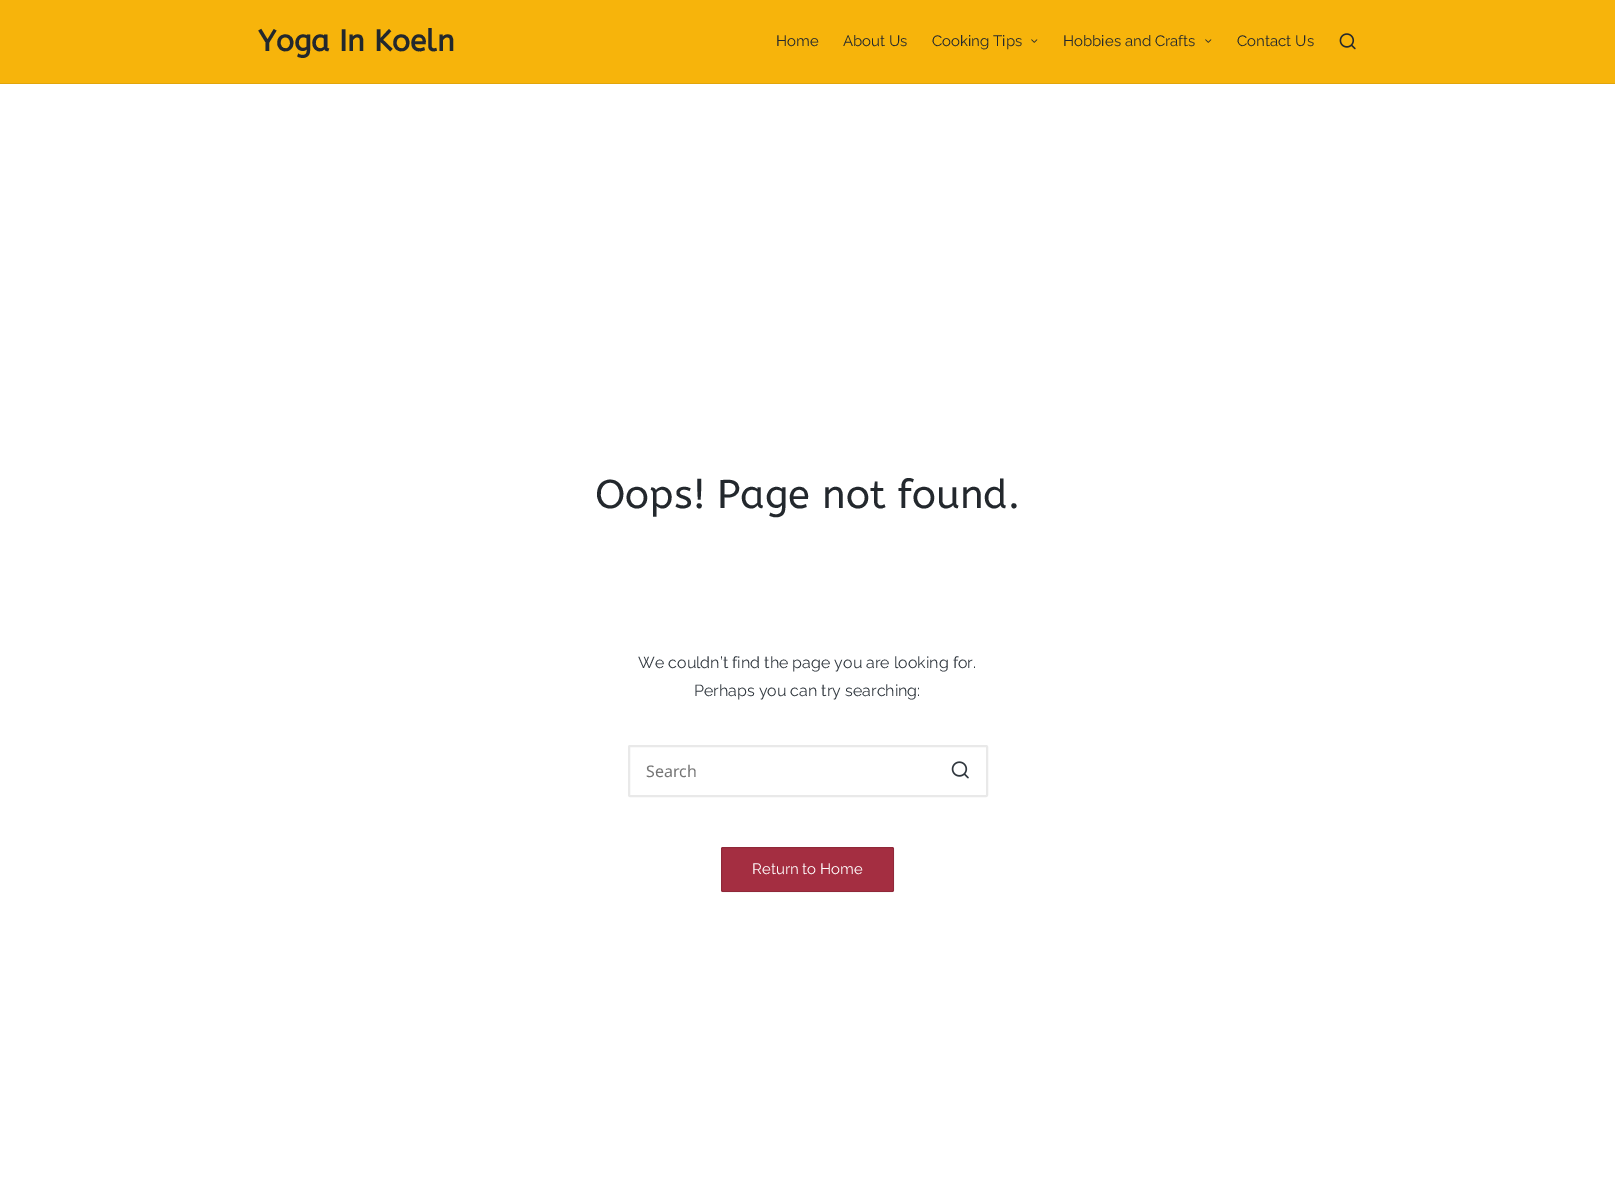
%!PS
<< /PageSize [1615 1177] /PageUsesTransparency true >> setpagedevice
/fl/fill load def
/st/stroke load def
/lw/setlinewidth load def
/co { dup -16 bitshift 255 div exch dup -8 bitshift 255 and 255 div exch 255 and 255 div setrgbcolor } def
/fn { [ exch dup neg 0 0 3 -1 roll 0 0 ] selectfont } def
/tx { co fn moveto show } def
/bx { co rectfill } def
/al { dup .setfillconstantalpha .setstrokeconstantalpha } def
/rr { 5 dict begin { /r /h /w /y /x } { exch def } forall
  x r add y moveto x w add y 2 copy h add r arct x w add y h add x 1 index r arct
  x y h add x y r arct x y 2 copy exch w add exch r arct closepath end } def
/im { 5 dict begin { /h /w /y /x /name } { exch def } forall
  gsave x y translate w h scale
  w h 8 [w 0 0 h 0 0] name (r) file false 3 colorimage grestore end } def
0 .pushpdf14devicefilter
0 1177 translate 1 -1 scale
4 setmiterlimit
0 0 1615 1177 16#FFFFFF bx
0 0 1615 83 16#F7B40B bx
0 83 1615 1 16#E2A50A bx
(media/1.raw) 1031 39 7 4 im
(media/1.raw) 1205 39 7 4 im
(media/2.raw) 1339 33 17 17 im
16#E9E9E9 co
2 lw
629 746 358 50 1 rr st
(media/3.raw) 951 761 18 18 im
16#A42E41 co
721 847 173 45 2 rr fl
0.12 al
16#000000 co
1 lw
721.5 847.5 172 44 1.5 rr st
1 al
(Yoga In Koeln) 258 51 /ABeeZee-Bold 30 16#23282D tx
(Home) 776 46 /Raleway-Thin 15 16#23282D tx
(About Us) 843 46 /Raleway-Thin 15 16#23282D tx
(Cooking Tips) 932 46 /Raleway-Thin 15 16#23282D tx
(Hobbies and Crafts) 1063 46 /Raleway-Thin 15 16#23282D tx
(Contact Us) 1237 46 /Raleway-Thin 15 16#23282D tx
(Oops! Page not found.) 595 508 /ABeeZee-Regular 40 16#23282D tx
(We couldn’t find the page you are looking for.) 638 668 /Raleway-Thin 16 16#30373E tx
(Perhaps you can try searching:) 694 696 /Raleway-Thin 16 16#30373E tx
(Search) 646 777 /NotoSans-Regular 16 16#757575 tx
(Return to Home) 752 874 /Raleway-Thin 15 16#FFFFFF tx
.poppdf14devicefilter showpage
